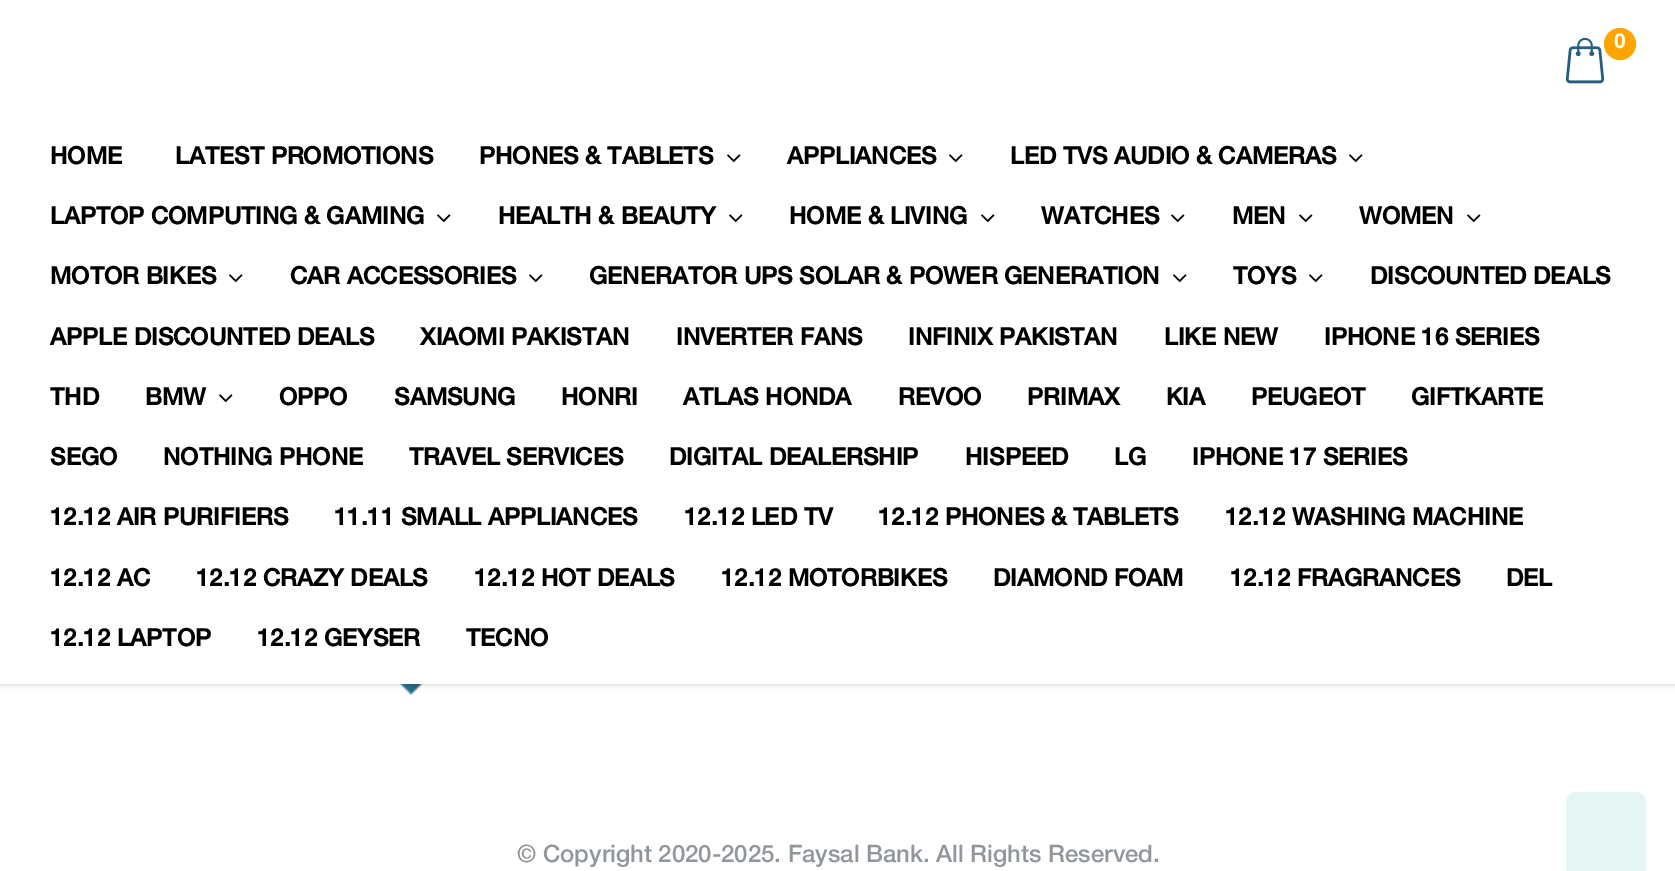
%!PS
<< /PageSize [1675 871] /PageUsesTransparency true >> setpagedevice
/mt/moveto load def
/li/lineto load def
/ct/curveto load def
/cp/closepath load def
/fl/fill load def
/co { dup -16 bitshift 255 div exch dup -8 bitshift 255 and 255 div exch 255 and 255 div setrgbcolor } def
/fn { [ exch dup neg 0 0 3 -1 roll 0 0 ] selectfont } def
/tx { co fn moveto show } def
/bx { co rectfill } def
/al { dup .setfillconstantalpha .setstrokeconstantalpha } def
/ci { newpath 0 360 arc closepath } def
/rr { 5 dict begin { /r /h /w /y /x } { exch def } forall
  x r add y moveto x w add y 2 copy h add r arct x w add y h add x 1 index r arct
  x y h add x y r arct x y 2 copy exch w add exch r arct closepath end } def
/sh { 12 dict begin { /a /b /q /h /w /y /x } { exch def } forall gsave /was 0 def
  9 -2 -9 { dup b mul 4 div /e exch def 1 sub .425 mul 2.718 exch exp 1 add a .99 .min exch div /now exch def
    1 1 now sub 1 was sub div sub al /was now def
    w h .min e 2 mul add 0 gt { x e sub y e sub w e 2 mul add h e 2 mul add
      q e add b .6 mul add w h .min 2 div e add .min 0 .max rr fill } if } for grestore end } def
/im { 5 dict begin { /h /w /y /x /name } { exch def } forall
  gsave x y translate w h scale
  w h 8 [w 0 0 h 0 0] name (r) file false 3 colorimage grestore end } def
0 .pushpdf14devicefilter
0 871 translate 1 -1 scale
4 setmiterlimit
0 0 1675 871 16#FFFFFF bx
(media/3.raw) 399 684 25 11 im
16#000000 co
0 2 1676 684 0 2 .1 sh
0 0 1675 684 16#FFFFFF bx
(media/1.raw) 1565 37 40 47 im
16#FFA500 co
1620 44 16 ci fl
(media/2.raw) 727 154 14 9 im
(media/2.raw) 949 154 14 9 im
(media/2.raw) 1349 154 14 9 im
(media/2.raw) 437 214 14 9 im
(media/2.raw) 729 214 14 9 im
(media/2.raw) 981 214 14 9 im
(media/2.raw) 1171 214 14 9 im
(media/2.raw) 1299 214 14 9 im
(media/2.raw) 1467 214 14 9 im
(media/2.raw) 229 274 14 9 im
(media/2.raw) 529 274 14 9 im
(media/2.raw) 1173 274 14 9 im
(media/2.raw) 1309 274 14 9 im
(media/2.raw) 219 394 14 9 im
16#E5F5F4 co
1576 792 mt 1636 792 li 1641.5 792 1646 796.5 1646 802 ct 1646 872 li 1566 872 li 1566 802 li 1566 796.5 1570.5 792 1576 792 ct cp fl
(0) 1614 48 /HelveticaNeue-Bold 20 16#FFFFFF tx
(HOME) 50 164 /HelveticaNeue-Bold 24 16#000000 tx
(LATEST PROMOTIONS) 175 164 /HelveticaNeue-Bold 24 16#000000 tx
(PHONES & TABLETS) 479 164 /HelveticaNeue-Bold 24 16#000000 tx
(APPLIANCES) 787 164 /HelveticaNeue-Bold 24 16#000000 tx
(LED TVS AUDIO & CAMERAS) 1010 164 /HelveticaNeue-Bold 24 16#000000 tx
(LAPTOP COMPUTING & GAMING) 50 224 /HelveticaNeue-Bold 24 16#000000 tx
(HEALTH & BEAUTY) 498 224 /HelveticaNeue-Bold 24 16#000000 tx
(HOME & LIVING) 789 224 /HelveticaNeue-Bold 24 16#000000 tx
(WATCHES) 1041 224 /HelveticaNeue-Bold 24 16#000000 tx
(MEN) 1232 224 /HelveticaNeue-Bold 24 16#000000 tx
(WOMEN) 1359 224 /HelveticaNeue-Bold 24 16#000000 tx
(MOTOR BIKES) 50 284 /HelveticaNeue-Bold 24 16#000000 tx
(CAR ACCESSORIES) 290 284 /HelveticaNeue-Bold 24 16#000000 tx
(GENERATOR UPS SOLAR & POWER GENERATION) 589 284 /HelveticaNeue-Bold 24 16#000000 tx
(TOYS) 1233 284 /HelveticaNeue-Bold 24 16#000000 tx
(DISCOUNTED DEALS) 1370 284 /HelveticaNeue-Bold 24 16#000000 tx
(APPLE DISCOUNTED DEALS) 50 345 /HelveticaNeue-Bold 24 16#000000 tx
(XIAOMI PAKISTAN) 420 345 /HelveticaNeue-Bold 24 16#000000 tx
(INVERTER FANS) 676 345 /HelveticaNeue-Bold 24 16#000000 tx
(INFINIX PAKISTAN) 908 345 /HelveticaNeue-Bold 24 16#000000 tx
(LIKE NEW) 1164 345 /HelveticaNeue-Bold 24 16#000000 tx
(IPHONE 16 SERIES) 1324 345 /HelveticaNeue-Bold 24 16#000000 tx
(THD) 50 405 /HelveticaNeue-Bold 24 16#000000 tx
(BMW) 145 405 /HelveticaNeue-Bold 24 16#000000 tx
(OPPO) 279 405 /HelveticaNeue-Bold 24 16#000000 tx
(SAMSUNG) 394 405 /HelveticaNeue-Bold 24 16#000000 tx
(HONRI) 561 405 /HelveticaNeue-Bold 24 16#000000 tx
(ATLAS HONDA) 683 405 /HelveticaNeue-Bold 24 16#000000 tx
(REVOO) 898 405 /HelveticaNeue-Bold 24 16#000000 tx
(PRIMAX) 1027 405 /HelveticaNeue-Bold 24 16#000000 tx
(KIA) 1166 405 /HelveticaNeue-Bold 24 16#000000 tx
(PEUGEOT) 1251 405 /HelveticaNeue-Bold 24 16#000000 tx
(GIFTKARTE) 1411 405 /HelveticaNeue-Bold 24 16#000000 tx
(SEGO) 50 465 /HelveticaNeue-Bold 24 16#000000 tx
(NOTHING PHONE) 163 465 /HelveticaNeue-Bold 24 16#000000 tx
(TRAVEL SERVICES) 409 465 /HelveticaNeue-Bold 24 16#000000 tx
(DIGITAL DEALERSHIP) 669 465 /HelveticaNeue-Bold 24 16#000000 tx
(HISPEED) 965 465 /HelveticaNeue-Bold 24 16#000000 tx
(LG) 1114 465 /HelveticaNeue-Bold 24 16#000000 tx
(IPHONE 17 SERIES) 1192 465 /HelveticaNeue-Bold 24 16#000000 tx
(12.12 AIR PURIFIERS) 50 525 /HelveticaNeue-Bold 24 16#000000 tx
(11.11 SMALL APPLIANCES) 334 525 /HelveticaNeue-Bold 24 16#000000 tx
(12.12 LED TV) 684 525 /HelveticaNeue-Bold 24 16#000000 tx
(12.12 PHONES & TABLETS) 878 525 /HelveticaNeue-Bold 24 16#000000 tx
(12.12 WASHING MACHINE) 1225 525 /HelveticaNeue-Bold 24 16#000000 tx
(12.12 AC) 50 586 /HelveticaNeue-Bold 24 16#000000 tx
(12.12 CRAZY DEALS) 196 586 /HelveticaNeue-Bold 24 16#000000 tx
(12.12 HOT DEALS) 474 586 /HelveticaNeue-Bold 24 16#000000 tx
(12.12 MOTORBIKES) 721 586 /HelveticaNeue-Bold 24 16#000000 tx
(DIAMOND FOAM) 993 586 /HelveticaNeue-Bold 24 16#000000 tx
(12.12 FRAGRANCES) 1230 586 /HelveticaNeue-Bold 24 16#000000 tx
(DEL) 1506 586 /HelveticaNeue-Bold 24 16#000000 tx
(12.12 LAPTOP) 50 646 /HelveticaNeue-Bold 24 16#000000 tx
(12.12 GEYSER) 257 646 /HelveticaNeue-Bold 24 16#000000 tx
(TECNO) 466 646 /HelveticaNeue-Bold 24 16#000000 tx
(© Copyright 2020-2025. Faysal Bank. All Rights Reserved.) 517 862 /HelveticaNeue-Medium 24 16#90969A tx
.poppdf14devicefilter showpage
